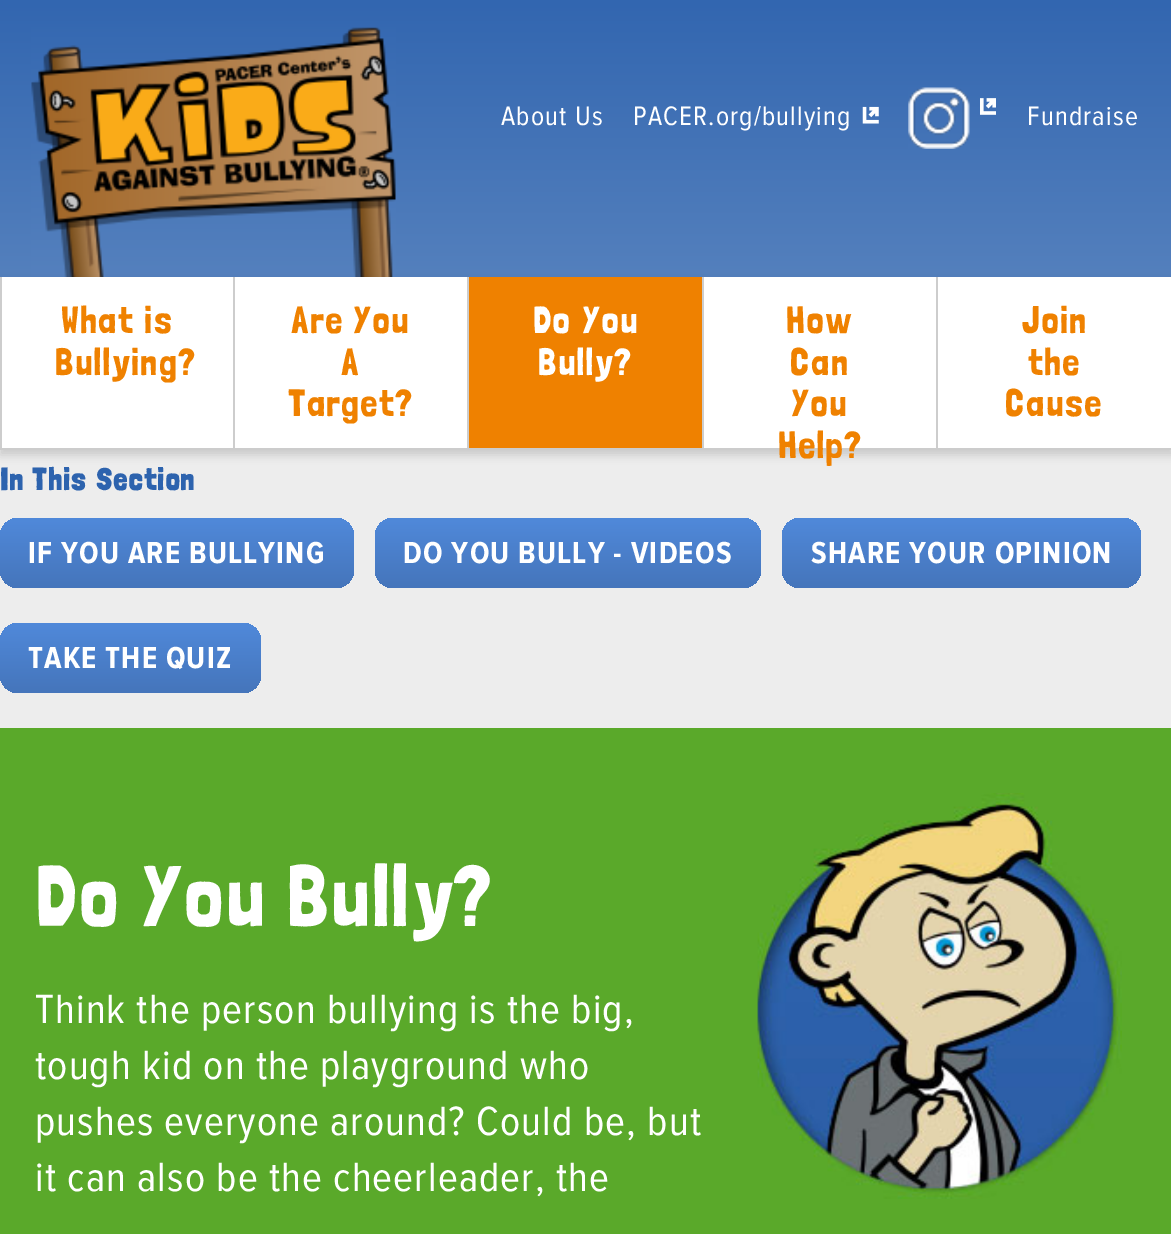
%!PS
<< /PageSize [1171 1234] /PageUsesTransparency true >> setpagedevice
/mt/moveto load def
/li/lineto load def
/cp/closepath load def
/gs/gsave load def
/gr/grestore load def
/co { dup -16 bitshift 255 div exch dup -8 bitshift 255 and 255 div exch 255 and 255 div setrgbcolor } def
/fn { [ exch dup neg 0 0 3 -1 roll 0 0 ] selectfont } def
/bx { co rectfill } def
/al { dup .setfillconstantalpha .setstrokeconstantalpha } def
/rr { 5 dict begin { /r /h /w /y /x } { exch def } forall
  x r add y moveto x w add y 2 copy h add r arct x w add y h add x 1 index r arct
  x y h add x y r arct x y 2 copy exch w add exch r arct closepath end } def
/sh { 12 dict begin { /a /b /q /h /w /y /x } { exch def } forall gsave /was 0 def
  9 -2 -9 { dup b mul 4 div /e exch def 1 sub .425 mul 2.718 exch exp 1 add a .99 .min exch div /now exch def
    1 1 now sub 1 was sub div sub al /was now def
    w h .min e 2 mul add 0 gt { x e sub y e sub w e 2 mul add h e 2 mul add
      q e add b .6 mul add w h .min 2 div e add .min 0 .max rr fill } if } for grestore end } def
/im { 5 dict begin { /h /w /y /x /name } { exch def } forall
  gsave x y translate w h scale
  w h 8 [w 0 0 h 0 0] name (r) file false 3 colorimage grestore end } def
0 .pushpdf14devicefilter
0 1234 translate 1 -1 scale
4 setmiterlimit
0 0 1171 1234 16#FFFFFF bx
gs 0 0 mt 1171 0 li 1171 277 li 0 277 li cp clip newpath
<< /ShadingType 2 /ColorSpace /DeviceRGB /Coords [586 0 586 277] /Extend [true true] /Function << /FunctionType 2 /Domain [0 1] /C0 [.196 .4 .69] /C1 [.329 .502 .741] /N 1 >> >> shfill gr
(media/1.raw) 31 27 365 250 im
(media/2.raw) 862 106 17 18 im
(media/3.raw) 908 87 62 62 im
(media/4.raw) 980 98 16 17 im
0 450 1171 278 16#EDEDED bx
16#000000 co
0 282 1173 173 0 4.5 .15 sh
2 277 1169 171 16#FFFFFF bx
0 448 1171 2 16#CCCCCC bx
233 277 2 171 16#CDCDCD bx
0 277 2 171 16#CDCDCD bx
467 277 2 171 16#CDCDCD bx
469 277 233 171 16#EF8100 bx
702 277 2 171 16#CDCDCD bx
936 277 2 171 16#CDCDCD bx
gs 0 518 354 70 18 rr clip newpath
<< /ShadingType 2 /ColorSpace /DeviceRGB /Coords [177 518 177 588] /Extend [true true] /Function << /FunctionType 2 /Domain [0 1] /C0 [.314 .537 .855] /C1 [.271 .459 .733] /N 1 >> >> shfill gr
gs 375 518 386 70 18 rr clip newpath
<< /ShadingType 2 /ColorSpace /DeviceRGB /Coords [568 518 568 588] /Extend [true true] /Function << /FunctionType 2 /Domain [0 1] /C0 [.314 .537 .855] /C1 [.271 .459 .733] /N 1 >> >> shfill gr
gs 782 518 359 70 18 rr clip newpath
<< /ShadingType 2 /ColorSpace /DeviceRGB /Coords [962 518 962 588] /Extend [true true] /Function << /FunctionType 2 /Domain [0 1] /C0 [.314 .537 .855] /C1 [.271 .459 .733] /N 1 >> >> shfill gr
gs 0 623 261 70 18 rr clip newpath
<< /ShadingType 2 /ColorSpace /DeviceRGB /Coords [130 623 130 693] /Extend [true true] /Function << /FunctionType 2 /Domain [0 1] /C0 [.314 .537 .855] /C1 [.271 .459 .733] /N 1 >> >> shfill gr
0 728 1171 506 16#5AA92A bx
(media/5.raw) 757 793 365 406 im
/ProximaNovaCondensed-Regular 27.75 fn
16#FFFFFF co
501 125 mt 1.15 0 (About Us) ashow
633 125 mt 1.15 0 (PACER.org/bullying) ashow
1027 125 mt 1.15 0 (Fundraise) ashow
/LondrinaSolid-Regular 38 fn
16#EF8100 co
61 333 mt 1.15 0 (What is) ashow
55 375 mt 1.15 0 (Bullying?) ashow
291 333 mt 1.15 0 (Are You) ashow
341 375 mt 1.15 0 (A) ashow
288 416 mt 1.15 0 (Target?) ashow
16#FFFFFF co
533 333 mt 1.15 0 (Do You) ashow
538 375 mt 1.15 0 (Bully?) ashow
16#EF8100 co
786 333 mt 1.15 0 (How) ashow
790 375 mt 1.15 0 (Can) ashow
791 416 mt 1.15 0 (You) ashow
778 458 mt 1.15 0 (Help?) ashow
1022 333 mt 1.15 0 (Join) ashow
1028 375 mt 1.15 0 (the) ashow
1005 416 mt 1.15 0 (Cause) ashow
/LondrinaSolid-Bold 30.75 fn
16#2D63AE co
0 490 mt 1.15 0 (In This Section) ashow
/ProximaNovaCondensed-Bold 31.5 fn
16#FFFFFF co
28 563 mt 1.15 0 (IF YOU ARE BULLYING) ashow
403 563 mt 1.15 0 (DO YOU BULLY - VIDEOS) ashow
811 563 mt 1.15 0 (SHARE YOUR OPINION) ashow
28 668 mt 1.15 0 (TAKE THE QUIZ) ashow
/LondrinaSolid-Regular 86.5 fn
35 926 mt 1.15 0 (Do You Bully?) ashow
/ProximaNovaCondensed-Regular 42.4 fn
35 1023 mt 1.15 0 (Think the person bullying is the big,) ashow
35 1079 mt 1.15 0 (tough kid on the playground who) ashow
35 1135 mt 1.15 0 (pushes everyone around? Could be, but) ashow
35 1191 mt 1.15 0 (it can also be the cheerleader, the) ashow
.poppdf14devicefilter showpage
